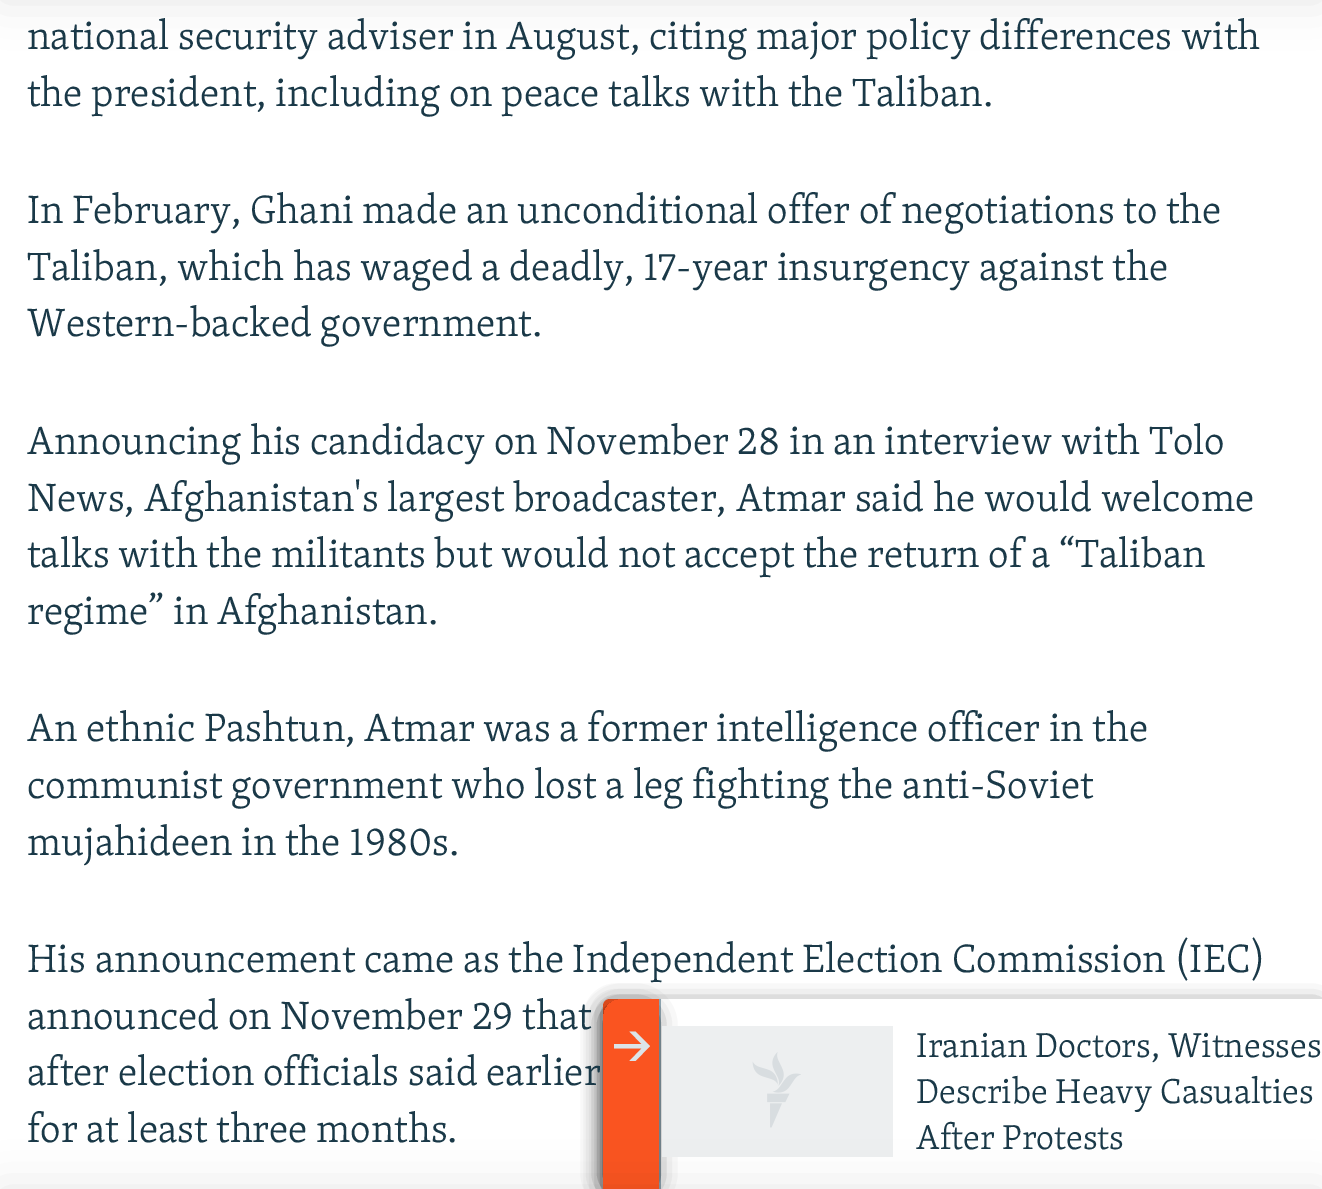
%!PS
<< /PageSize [1322 1189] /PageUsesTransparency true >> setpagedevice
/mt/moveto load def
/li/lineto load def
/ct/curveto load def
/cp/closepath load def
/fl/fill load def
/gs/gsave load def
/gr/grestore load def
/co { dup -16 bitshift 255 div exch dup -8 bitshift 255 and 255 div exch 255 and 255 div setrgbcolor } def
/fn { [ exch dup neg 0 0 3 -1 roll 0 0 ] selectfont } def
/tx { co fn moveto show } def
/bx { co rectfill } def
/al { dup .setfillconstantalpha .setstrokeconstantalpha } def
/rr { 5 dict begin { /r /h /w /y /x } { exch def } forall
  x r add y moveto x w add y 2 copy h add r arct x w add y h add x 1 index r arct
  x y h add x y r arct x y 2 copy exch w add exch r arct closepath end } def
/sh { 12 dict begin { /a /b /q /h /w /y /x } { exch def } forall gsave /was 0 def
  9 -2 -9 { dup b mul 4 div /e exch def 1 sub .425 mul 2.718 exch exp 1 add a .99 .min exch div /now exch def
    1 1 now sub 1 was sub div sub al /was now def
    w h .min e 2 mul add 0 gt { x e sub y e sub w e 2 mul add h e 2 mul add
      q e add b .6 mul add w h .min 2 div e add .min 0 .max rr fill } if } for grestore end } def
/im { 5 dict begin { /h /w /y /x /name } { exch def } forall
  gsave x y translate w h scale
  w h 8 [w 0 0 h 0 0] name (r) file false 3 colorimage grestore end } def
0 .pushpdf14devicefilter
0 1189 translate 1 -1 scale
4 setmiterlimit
0 0 1322 1189 16#FFFFFF bx
16#000000 co
0 -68 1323 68 0 22.5 .1 sh
608 1008 711 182 2 11 .85 sh
16#FA5420 co
610 999 mt 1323 999 li 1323 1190 li 603 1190 li 603 1006 li 603 1002 606 999 610 999 ct cp fl
661 999 661 190 16#FFFFFF bx
659 999 2 190 16#95ADB9 bx
gs
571 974 mt 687 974 li 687 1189 li 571 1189 li cp 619 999 mt 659 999 li 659 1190 li 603 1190 li 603 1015 li 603 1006 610 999 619 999 ct cp eoclip newpath
16#000000 co
605 1008 48 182 11 11 .85 sh
gr
662 1026 231 131 16#EDEFF0 bx
(media/1.raw) 752 1052 49 76 im
16#000000 co
0 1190 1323 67 0 22.5 .1 sh
16#DCE4E8 co
650 1046 mt 635.5 1031.5 li 629.5 1031.5 li 641.5 1044 li 614 1044 li 614 1048.5 li 641.5 1048.5 li 629.5 1061 li 635.5 1061 li cp fl
(national security adviser in August, citing major policy differences with) 27 49 /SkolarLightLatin-Light 40.5 16#1A3948 tx
(the president, including on peace talks with the Taliban.) 27 106 /SkolarLightLatin-Light 40.5 16#1A3948 tx
(In February, Ghani made an unconditional offer of negotiations to the) 27 223 /SkolarLightLatin-Light 40.5 16#1A3948 tx
(Taliban, which has waged a deadly, 17-year insurgency against the) 27 280 /SkolarLightLatin-Light 40.5 16#1A3948 tx
(Western-backed government.) 27 336 /SkolarLightLatin-Light 40.5 16#1A3948 tx
(Announcing his candidacy on November 28 in an interview with Tolo) 27 454 /SkolarLightLatin-Light 40.5 16#1A3948 tx
(News, Afghanistan's largest broadcaster, Atmar said he would welcome) 27 511 /SkolarLightLatin-Light 40.5 16#1A3948 tx
(talks with the militants but would not accept the return of a “Taliban) 27 567 /SkolarLightLatin-Light 40.5 16#1A3948 tx
(regime” in Afghanistan.) 27 624 /SkolarLightLatin-Light 40.5 16#1A3948 tx
(An ethnic Pashtun, Atmar was a former intelligence officer in the) 27 741 /SkolarLightLatin-Light 40.5 16#1A3948 tx
(communist government who lost a leg fighting the anti-Soviet) 27 798 /SkolarLightLatin-Light 40.5 16#1A3948 tx
(mujahideen in the 1980s.) 27 855 /SkolarLightLatin-Light 40.5 16#1A3948 tx
(His announcement came as the Independent Election Commission \(IEC\)) 27 972 /SkolarLightLatin-Light 40.5 16#1A3948 tx
(announced on November 29 that) 27 1029 /SkolarLightLatin-Light 40.5 16#1A3948 tx
(after election officials said earlier) 27 1085 /SkolarLightLatin-Light 40.5 16#1A3948 tx
(for at least three months.) 27 1142 /SkolarLightLatin-Light 40.5 16#1A3948 tx
(Iranian Doctors, Witnesses) 916 1057 /SkolarLightLatin-Light 35.5 16#1A3948 tx
(Describe Heavy Casualties) 916 1103 /SkolarLightLatin-Light 35.5 16#1A3948 tx
(After Protests) 916 1149 /SkolarLightLatin-Light 35.5 16#1A3948 tx
.poppdf14devicefilter showpage
